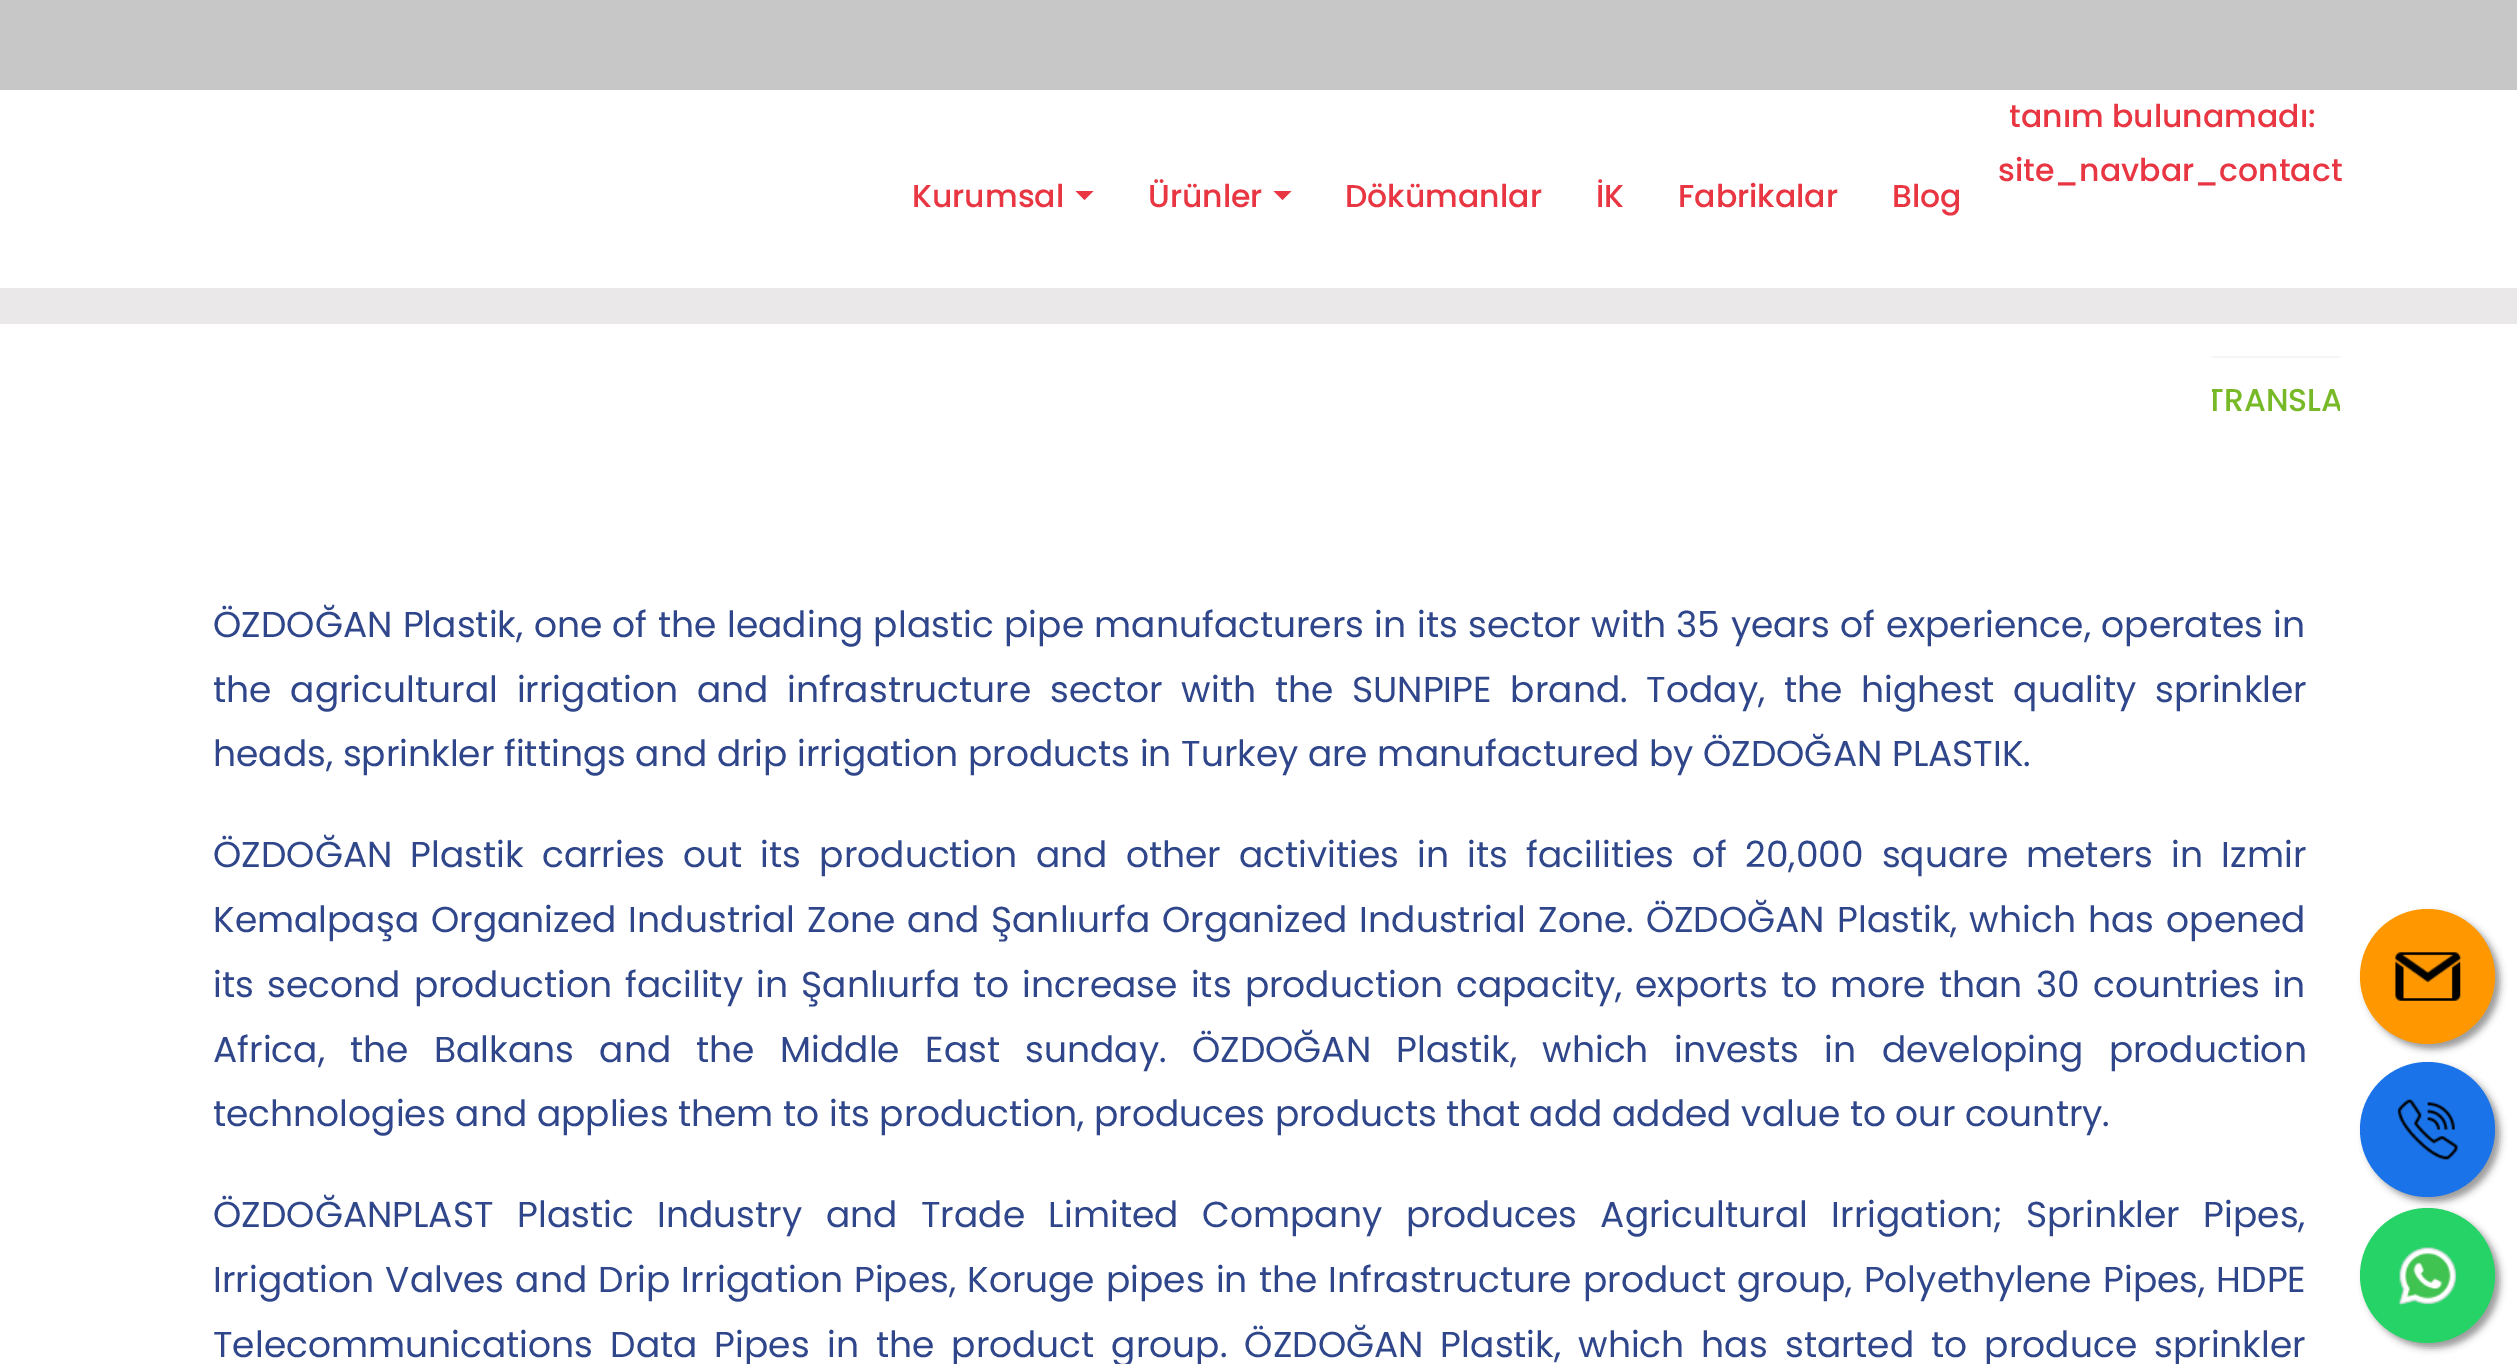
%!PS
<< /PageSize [2517 1364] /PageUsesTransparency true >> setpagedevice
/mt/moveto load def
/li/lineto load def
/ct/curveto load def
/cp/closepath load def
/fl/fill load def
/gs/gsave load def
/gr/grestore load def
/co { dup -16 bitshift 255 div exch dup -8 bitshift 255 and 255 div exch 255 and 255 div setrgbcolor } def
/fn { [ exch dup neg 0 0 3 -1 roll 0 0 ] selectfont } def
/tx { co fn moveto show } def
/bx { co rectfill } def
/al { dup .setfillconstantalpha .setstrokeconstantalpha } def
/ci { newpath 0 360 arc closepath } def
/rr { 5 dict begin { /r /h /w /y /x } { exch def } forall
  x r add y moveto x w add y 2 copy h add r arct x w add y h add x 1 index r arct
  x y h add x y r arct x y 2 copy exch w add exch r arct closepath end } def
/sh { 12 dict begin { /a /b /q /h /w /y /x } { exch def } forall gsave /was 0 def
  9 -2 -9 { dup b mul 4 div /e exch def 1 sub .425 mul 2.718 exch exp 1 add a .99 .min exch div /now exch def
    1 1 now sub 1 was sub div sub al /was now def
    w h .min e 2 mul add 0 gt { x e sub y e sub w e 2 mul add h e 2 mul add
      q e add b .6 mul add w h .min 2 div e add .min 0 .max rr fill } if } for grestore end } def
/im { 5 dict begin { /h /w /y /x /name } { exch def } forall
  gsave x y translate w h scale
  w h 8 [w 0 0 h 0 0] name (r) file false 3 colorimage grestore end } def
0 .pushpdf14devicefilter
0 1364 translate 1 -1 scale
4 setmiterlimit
0 0 2517 1364 16#FFFFFF bx
0 0 2517 90 16#C7C7C7 bx
16#E83643 co
1075.5 191 mt 1093.5 191 li 1084.5 200 li cp fl
1273.5 191 mt 1291.5 191 li 1282.5 200 li cp fl
2212 356 128 2 16#F5F5F5 bx
0 288 2517 36 16#EAE8E9 bx
16#999999 co
2365 914 135 135 67.5 3.5 1 sh
16#FF9800 co
2427.5 976.5 67.5 ci fl
(media/1.raw) 2395 952 66 49 im
16#999999 co
2365 1213 135 135 67.5 3.5 1 sh
16#25D366 co
2427.5 1275.5 67.5 ci fl
16#999999 co
2365 1067 135 135 67.5 3.5 1 sh
16#1A73E8 co
2427.5 1129.5 67.5 ci fl
(media/2.raw) 2397 1099 61 61 im
(media/3.raw) 2398 1247 59 59 im
(tanım bulunamadı:) 2009 127 /Poppins-Medium 31.5 16#E83643 tx
(site_navbar_contact) 1998 181 /Poppins-Medium 31.5 16#E83643 tx
(Kurumsal) 912 207 /Poppins-Medium 31.5 16#E83643 tx
(Ürünler) 1148 207 /Poppins-Medium 31.5 16#E83643 tx
(Dökümanlar) 1345 207 /Poppins-Medium 31.5 16#E83643 tx
(İK) 1596 207 /Poppins-Medium 31.5 16#E83643 tx
(Fabrikalar) 1678 207 /Poppins-Medium 31.5 16#E83643 tx
(Blog) 1892 207 /Poppins-Medium 31.5 16#E83643 tx
gs
2212 358 mt 2340 358 li 2340 417 li 2340 433 2327 446 2311 446 ct 2241 446 li 2225 446 2212 433 2212 417 ct cp clip newpath
(TRANSLA) 2206 411 /Poppins-Medium 31.5 16#78B928 tx
gr
/Poppins-Regular 36 fn
16#2F468A co
213 637 mt .9 0 32 (ÖZDOĞAN Plastik, one of the leading plastic pipe manufacturers in its sector with 35 years of experience, operates in) widthshow
213 702 mt 9.25 0 32 (the agricultural irrigation and infrastructure sector with the SUNPIPE brand. Today, the highest quality sprinkler) widthshow
(heads, sprinkler fittings and drip irrigation products in Turkey are manufactured by ÖZDOĞAN PLASTIK.) 213 766 /Poppins-Regular 36 16#2F468A tx
213 867 mt 8.6 0 32 (ÖZDOĞAN Plastik carries out its production and other activities in its facilities of 20,000 square meters in Izmir) widthshow
213 932 mt 2.5 0 32 (Kemalpaşa Organized Industrial Zone and Şanlıurfa Organized Industrial Zone. ÖZDOĞAN Plastik, which has opened) widthshow
213 997 mt 3.6 0 32 (its second production facility in Şanlıurfa to increase its production capacity, exports to more than 30 countries in) widthshow
213 1062 mt 15.75 0 32 (Africa, the Balkans and the Middle East sunday. ÖZDOĞAN Plastik, which invests in developing production) widthshow
(technologies and applies them to its production, produces products that add added value to our country.) 213 1126 /Poppins-Regular 36 16#2F468A tx
213 1227 mt 14 0 32 (ÖZDOĞANPLAST Plastic Industry and Trade Limited Company produces Agricultural Irrigation; Sprinkler Pipes,) widthshow
213 1292 mt 1.5 0 32 (Irrigation Valves and Drip Irrigation Pipes, Koruge pipes in the Infrastructure product group, Polyethylene Pipes, HDPE) widthshow
213 1357 mt 7.5 0 32 (Telecommunications Data Pipes in the product group. ÖZDOĞAN Plastik, which has started to produce sprinkler) widthshow
.poppdf14devicefilter showpage
